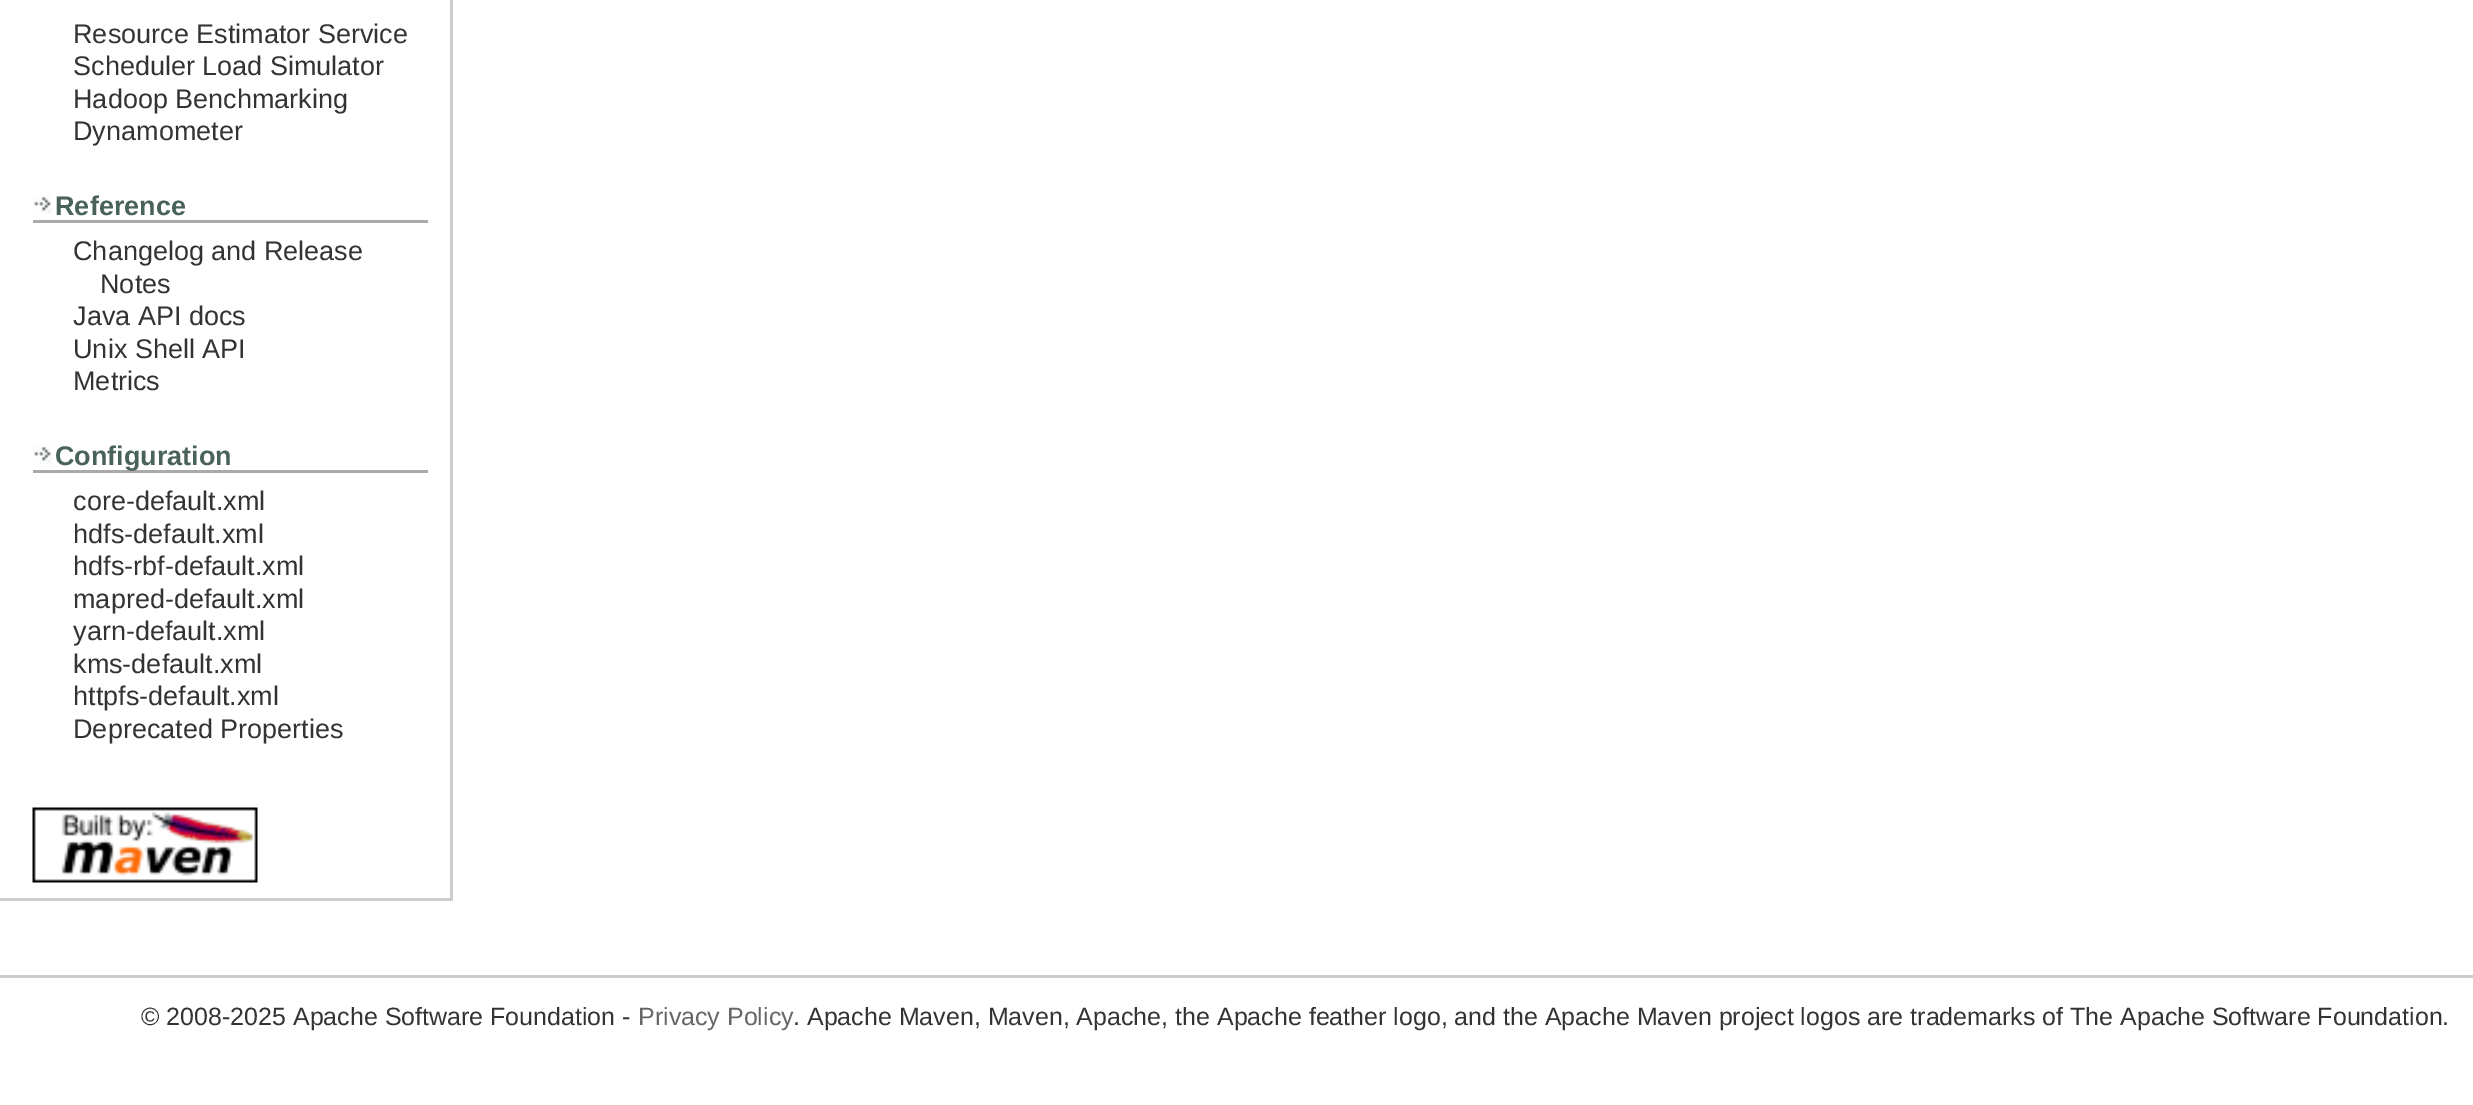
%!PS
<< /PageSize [2473 1105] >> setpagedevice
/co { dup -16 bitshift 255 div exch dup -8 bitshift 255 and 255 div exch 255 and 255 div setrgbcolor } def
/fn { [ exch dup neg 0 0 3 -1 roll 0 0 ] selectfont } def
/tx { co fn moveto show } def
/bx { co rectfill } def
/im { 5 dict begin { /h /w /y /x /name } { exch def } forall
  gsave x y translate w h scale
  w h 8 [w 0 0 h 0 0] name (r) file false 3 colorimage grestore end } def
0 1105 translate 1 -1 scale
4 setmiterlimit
0 0 2473 1105 16#FFFFFF bx
450 0 3 900 16#CCCCCC bx
0 898 453 3 16#CCCCCC bx
(media/1.raw) 32 195 21 20 im
33 220 395 3 16#AAAAAA bx
(media/1.raw) 32 445 21 20 im
33 470 395 3 16#AAAAAA bx
(media/2.raw) 32 807 226 76 im
0 975 2473 3 16#CCCCCC bx
(Resource Estimator Service) 73 43 /LiberationSans-Regular 27 16#333333 tx
(Scheduler Load Simulator) 73 75 /LiberationSans-Regular 27 16#333333 tx
(Hadoop Benchmarking) 73 108 /LiberationSans-Regular 27 16#333333 tx
(Dynamometer) 73 140 /LiberationSans-Regular 27 16#333333 tx
(Reference) 55 215 /LiberationSans-Bold 27 16#49635A tx
(Changelog and Release) 73 260 /LiberationSans-Regular 27 16#333333 tx
(Notes) 100 293 /LiberationSans-Regular 27 16#333333 tx
(Java API docs) 73 325 /LiberationSans-Regular 27 16#333333 tx
(Unix Shell API) 73 358 /LiberationSans-Regular 27 16#333333 tx
(Metrics) 73 390 /LiberationSans-Regular 27 16#333333 tx
(Configuration) 55 465 /LiberationSans-Bold 27 16#49635A tx
(core-default.xml) 73 510 /LiberationSans-Regular 27 16#333333 tx
(hdfs-default.xml) 73 543 /LiberationSans-Regular 27 16#333333 tx
(hdfs-rbf-default.xml) 73 575 /LiberationSans-Regular 27 16#333333 tx
(mapred-default.xml) 73 608 /LiberationSans-Regular 27 16#333333 tx
(yarn-default.xml) 73 640 /LiberationSans-Regular 27 16#333333 tx
(kms-default.xml) 73 673 /LiberationSans-Regular 27 16#333333 tx
(httpfs-default.xml) 73 705 /LiberationSans-Regular 27 16#333333 tx
(Deprecated Properties) 73 738 /LiberationSans-Regular 27 16#333333 tx
(© 2008-2025 Apache Software Foundation -) 141 1025 /LiberationSans-Regular 25 16#333333 tx
(Privacy Policy) 638 1025 /LiberationSans-Regular 25 16#666666 tx
(. Apache Maven, Maven, Apache, the Apache feather logo, and the Apache Maven project logos are trademarks of The Apache Software Foundation.) 793 1025 /LiberationSans-Regular 25 16#333333 tx
showpage
